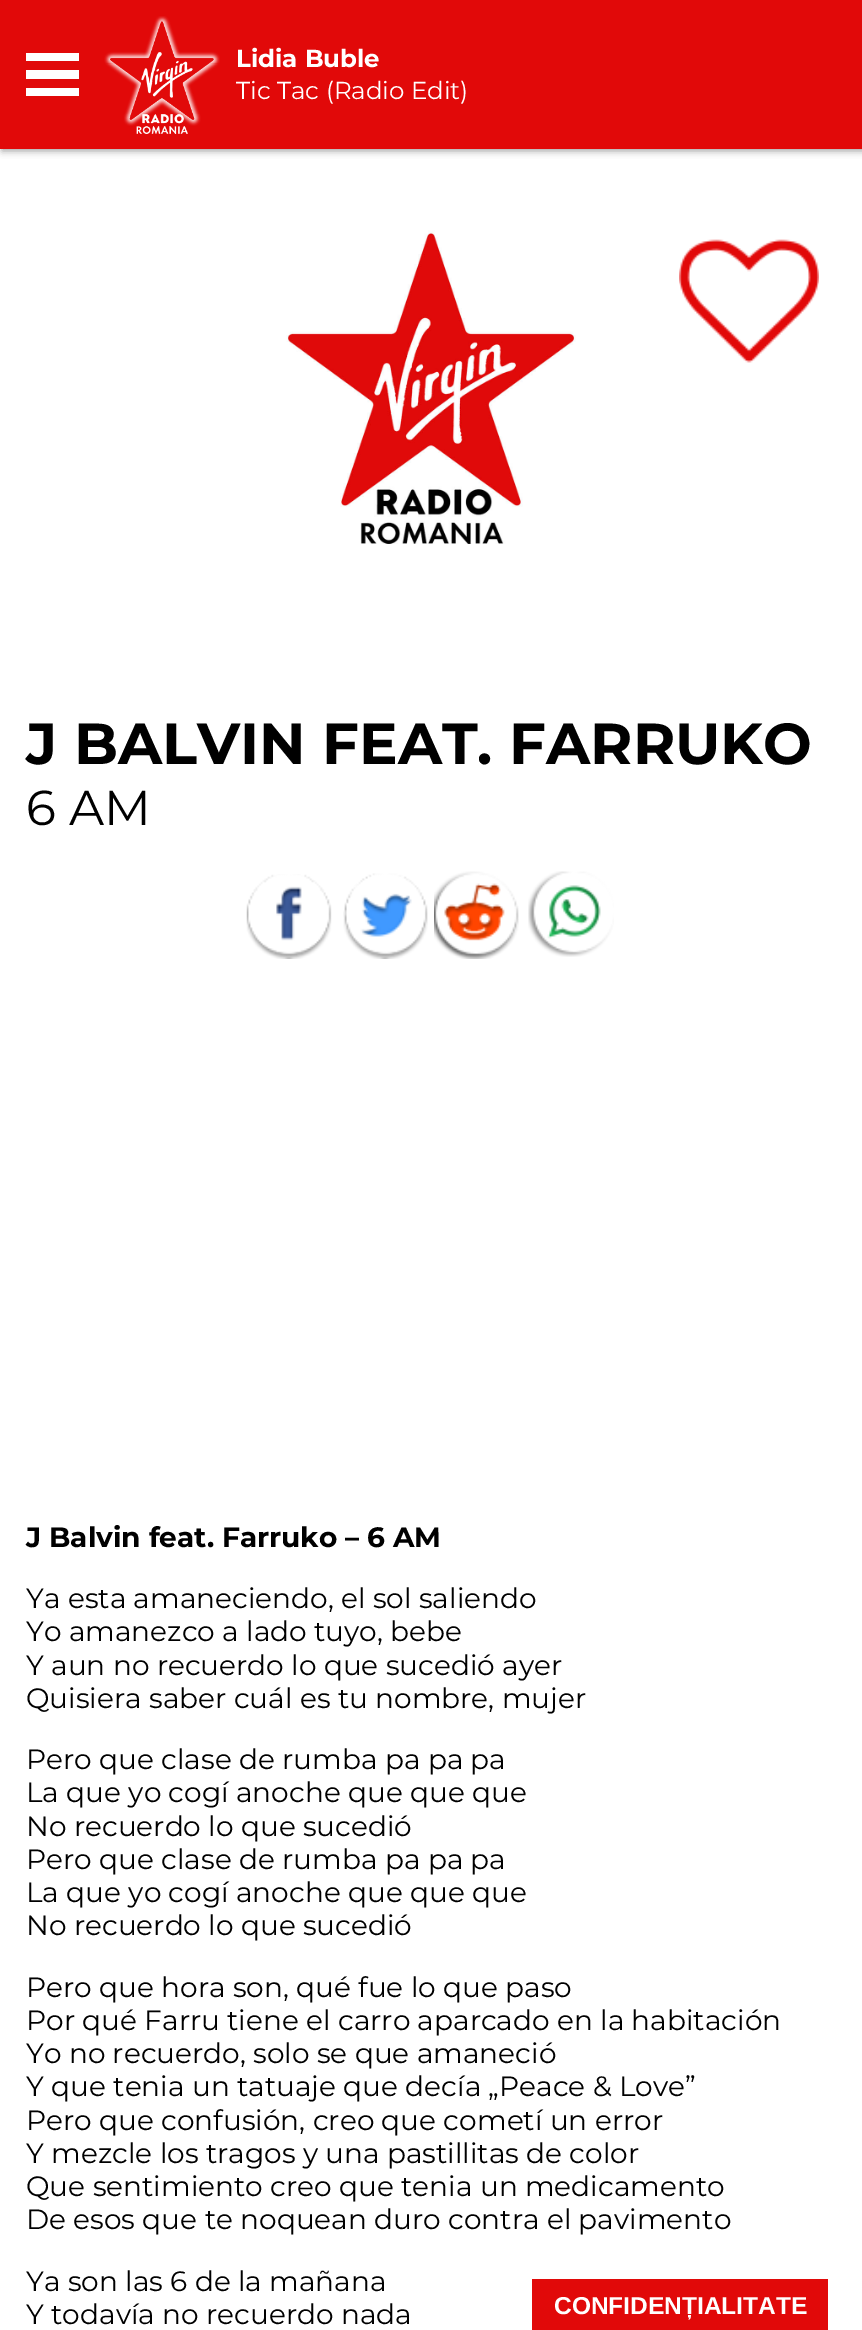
%!PS
<< /PageSize [862 2330] /PageUsesTransparency true >> setpagedevice
/co { dup -16 bitshift 255 div exch dup -8 bitshift 255 and 255 div exch 255 and 255 div setrgbcolor } def
/fn { [ exch dup neg 0 0 3 -1 roll 0 0 ] selectfont } def
/tx { co fn moveto show } def
/bx { co rectfill } def
/al { dup .setfillconstantalpha .setstrokeconstantalpha } def
/rr { 5 dict begin { /r /h /w /y /x } { exch def } forall
  x r add y moveto x w add y 2 copy h add r arct x w add y h add x 1 index r arct
  x y h add x y r arct x y 2 copy exch w add exch r arct closepath end } def
/sh { 12 dict begin { /a /b /q /h /w /y /x } { exch def } forall gsave /was 0 def
  9 -2 -9 { dup b mul 4 div /e exch def 1 sub .425 mul 2.718 exch exp 1 add a .99 .min exch div /now exch def
    1 1 now sub 1 was sub div sub al /was now def
    w h .min e 2 mul add 0 gt { x e sub y e sub w e 2 mul add h e 2 mul add
      q e add b .6 mul add w h .min 2 div e add .min 0 .max rr fill } if } for grestore end } def
/im { 5 dict begin { /h /w /y /x /name } { exch def } forall
  gsave x y translate w h scale
  w h 8 [w 0 0 h 0 0] name (r) file false 3 colorimage grestore end } def
0 .pushpdf14devicefilter
0 2330 translate 1 -1 scale
4 setmiterlimit
0 0 862 2330 16#FFFFFF bx
16#000000 co
2 2 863 149 0 3.5 .35 sh
0 0 862 149 16#E10909 bx
26 53 53 8 16#FFFFFF bx
26 70 53 9 16#FFFFFF bx
26 88 53 8 16#FFFFFF bx
(media/1.raw) 104 16 116 118 im
(media/2.raw) 286 230 290 314 im
(media/3.raw) 679 239 140 124 im
(media/4.raw) 246 874 86 85 im
(media/5.raw) 343 873 85 86 im
(media/6.raw) 434 871 85 88 im
(media/7.raw) 528 871 86 86 im
532 2279 296 51 16#E10909 bx
(Lidia Buble) 236 67 /Montserrat-Bold 24.5 16#FFFFFF tx
(Tic Tac \(Radio Edit\)) 236 99 /Montserrat-Regular 24.5 16#FFFFFF tx
(J BALVIN FEAT. FARRUKO) 26 764 /Montserrat-Bold 57.75 16#000000 tx
(6 AM) 26 825 /Montserrat-Regular 49 16#000000 tx
(J Balvin feat. Farruko – 6 AM) 26 1547 /Montserrat-Bold 28 16#000000 tx
(Ya esta amaneciendo, el sol saliendo) 26 1608 /Montserrat-Regular 28 16#000000 tx
(Yo amanezco a lado tuyo, bebe) 26 1641 /Montserrat-Regular 28 16#000000 tx
(Y aun no recuerdo lo que sucedió ayer) 26 1675 /Montserrat-Regular 28 16#000000 tx
(Quisiera saber cuál es tu nombre, mujer) 26 1708 /Montserrat-Regular 28 16#000000 tx
(Pero que clase de rumba pa pa pa) 26 1769 /Montserrat-Regular 28 16#000000 tx
(La que yo cogí anoche que que que) 26 1802 /Montserrat-Regular 28 16#000000 tx
(No recuerdo lo que sucedió) 26 1836 /Montserrat-Regular 28 16#000000 tx
(Pero que clase de rumba pa pa pa) 26 1869 /Montserrat-Regular 28 16#000000 tx
(La que yo cogí anoche que que que) 26 1902 /Montserrat-Regular 28 16#000000 tx
(No recuerdo lo que sucedió) 26 1935 /Montserrat-Regular 28 16#000000 tx
(Pero que hora son, qué fue lo que paso) 26 1997 /Montserrat-Regular 28 16#000000 tx
(Por qué Farru tiene el carro aparcado en la habitación) 26 2030 /Montserrat-Regular 28 16#000000 tx
(Yo no recuerdo, solo se que amaneció) 26 2063 /Montserrat-Regular 28 16#000000 tx
(Y que tenia un tatuaje que decía „Peace & Love”) 26 2096 /Montserrat-Regular 28 16#000000 tx
(Pero que confusión, creo que cometí un error) 26 2130 /Montserrat-Regular 28 16#000000 tx
(Y mezcle los tragos y una pastillitas de color) 26 2163 /Montserrat-Regular 28 16#000000 tx
(Que sentimiento creo que tenia un medicamento) 26 2196 /Montserrat-Regular 28 16#000000 tx
(De esos que te noquean duro contra el pavimento) 26 2229 /Montserrat-Regular 28 16#000000 tx
(Ya son las 6 de la mañana) 26 2291 /Montserrat-Regular 28 16#000000 tx
(Y todavía no recuerdo nada) 26 2324 /Montserrat-Regular 28 16#000000 tx
(CONFIDENȚIALITATE) 554 2314 /LiberationSans-Bold 24.5 16#FFFFFF tx
.poppdf14devicefilter showpage
